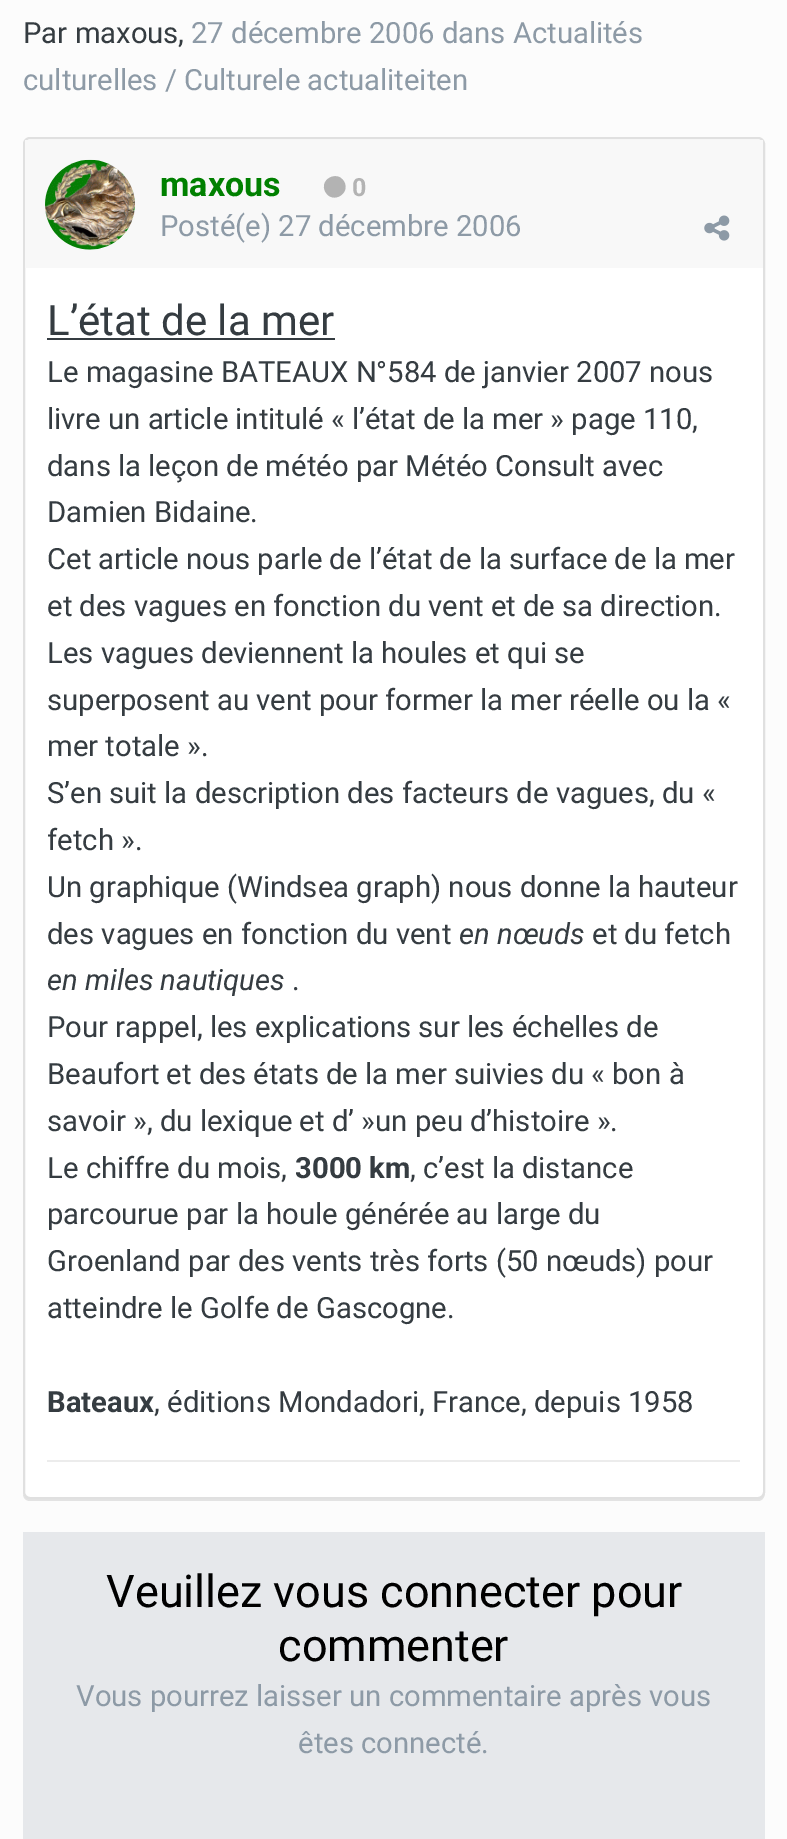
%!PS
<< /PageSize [787 1839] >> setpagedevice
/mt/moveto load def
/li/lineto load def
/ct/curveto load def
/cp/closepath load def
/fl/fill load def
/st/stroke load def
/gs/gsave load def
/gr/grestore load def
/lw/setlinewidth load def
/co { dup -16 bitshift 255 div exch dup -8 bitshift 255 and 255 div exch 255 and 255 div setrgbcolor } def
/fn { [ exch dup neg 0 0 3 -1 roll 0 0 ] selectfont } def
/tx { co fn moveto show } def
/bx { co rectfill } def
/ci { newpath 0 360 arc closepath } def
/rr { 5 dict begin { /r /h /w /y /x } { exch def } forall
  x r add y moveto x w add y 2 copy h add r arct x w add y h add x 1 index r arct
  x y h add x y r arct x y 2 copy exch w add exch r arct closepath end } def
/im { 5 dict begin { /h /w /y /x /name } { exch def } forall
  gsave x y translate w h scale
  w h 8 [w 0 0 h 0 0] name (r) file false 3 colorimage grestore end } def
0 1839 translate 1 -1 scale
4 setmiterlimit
0 0 787 1839 16#FCFCFC bx
16#E3E3E3 co
23 1494 mt 23 1498 26 1501 30 1501 ct 758 1501 li 763 1501 765 1496 765 1492 ct 765 1495 762 1498 758 1498 ct 29 1498 li 26 1498 24 1497 23 1494 ct cp fl
16#FFFFFF co
24 138 740 1360 6 rr gs fl gr
16#E0E0E0 co
2 lw
st
25 140 738 128 16#F8F8F8 bx
16#FFFFFF co
90 205 45 ci fl
(media/1.raw) 45 159 90 91 im
16#B3B3B3 co
344 181.5 mt 351 193.5 332.5 204.5 325.5 192 ct 318.5 180 337 169.5 344 181.5 ct cp fl
(media/2.raw) 704 215 26 26 im
47 338 288 2 16#353C41 bx
47 1460 693 2 16#ECECEC bx
23 1532 742 307 16#E6E8EB bx
(Par maxous,) 23 43 /Roboto-Regular 29.25 16#353C41 tx
(27 décembre 2006 dans Actualités) 191 43 /Roboto-Regular 29.25 16#8D9AA6 tx
(culturelles / Culturele actualiteiten) 23 90 /Roboto-Regular 29.25 16#8D9AA6 tx
(maxous) 160 196 /Roboto-Bold 34 16#008000 tx
(0) 352 196 /Roboto-Bold 25 16#B3B3B3 tx
(Posté\(e\) 27 décembre 2006) 160 236 /Roboto-Regular 29.25 16#8D9AA6 tx
(L’état de la mer) 47 335 /Roboto-Regular 42 16#353C41 tx
(Le magasine BATEAUX N°584 de janvier 2007 nous) 47 382 /Roboto-Regular 29.25 16#353C41 tx
(livre un article intitulé « l’état de la mer » page 110,) 47 429 /Roboto-Regular 29.25 16#353C41 tx
(dans la leçon de météo par Météo Consult avec) 47 476 /Roboto-Regular 29.25 16#353C41 tx
(Damien Bidaine.) 47 522 /Roboto-Regular 29.25 16#353C41 tx
(Cet article nous parle de l’état de la surface de la mer) 47 569 /Roboto-Regular 29.25 16#353C41 tx
(et des vagues en fonction du vent et de sa direction.) 47 616 /Roboto-Regular 29.25 16#353C41 tx
(Les vagues deviennent la houles et qui se) 47 663 /Roboto-Regular 29.25 16#353C41 tx
(superposent au vent pour former la mer réelle ou la «) 47 710 /Roboto-Regular 29.25 16#353C41 tx
(mer totale ».) 47 756 /Roboto-Regular 29.25 16#353C41 tx
(S’en suit la description des facteurs de vagues, du «) 47 803 /Roboto-Regular 29.25 16#353C41 tx
(fetch ».) 47 850 /Roboto-Regular 29.25 16#353C41 tx
(Un graphique \(Windsea graph\) nous donne la hauteur) 47 897 /Roboto-Regular 29.25 16#353C41 tx
(des vagues en fonction du vent) 47 944 /Roboto-Regular 29.25 16#353C41 tx
(en nœuds) 459 944 /Roboto-Italic 29.25 16#353C41 tx
(et du fetch) 592 944 /Roboto-Regular 29.25 16#353C41 tx
(en miles nautiques) 47 990 /Roboto-Italic 29.25 16#353C41 tx
(.) 292 990 /Roboto-Regular 29.25 16#353C41 tx
(Pour rappel, les explications sur les échelles de) 47 1037 /Roboto-Regular 29.25 16#353C41 tx
(Beaufort et des états de la mer suivies du « bon à) 47 1084 /Roboto-Regular 29.25 16#353C41 tx
(savoir », du lexique et d’ »un peu d’histoire ».) 47 1131 /Roboto-Regular 29.25 16#353C41 tx
(Le chiffre du mois,) 47 1178 /Roboto-Regular 29.25 16#353C41 tx
(3000 km) 295 1178 /Roboto-Bold 29.25 16#353C41 tx
(, c’est la distance) 410 1178 /Roboto-Regular 29.25 16#353C41 tx
(parcourue par la houle générée au large du) 47 1224 /Roboto-Regular 29.25 16#353C41 tx
(Groenland par des vents très forts \(50 nœuds\) pour) 47 1271 /Roboto-Regular 29.25 16#353C41 tx
(atteindre le Golfe de Gascogne.) 47 1318 /Roboto-Regular 29.25 16#353C41 tx
(Bateaux) 47 1412 /Roboto-Bold 29.25 16#353C41 tx
(, éditions Mondadori, France, depuis 1958) 154 1412 /Roboto-Regular 29.25 16#353C41 tx
(Veuillez vous connecter pour) 106 1607 /Roboto-Regular 45 16#000000 tx
(commenter) 278 1661 /Roboto-Regular 45 16#000000 tx
(Vous pourrez laisser un commentaire après vous) 76 1706 /Roboto-Regular 29.25 16#8D9AA6 tx
(êtes connecté.) 298 1753 /Roboto-Regular 29.25 16#8D9AA6 tx
showpage
